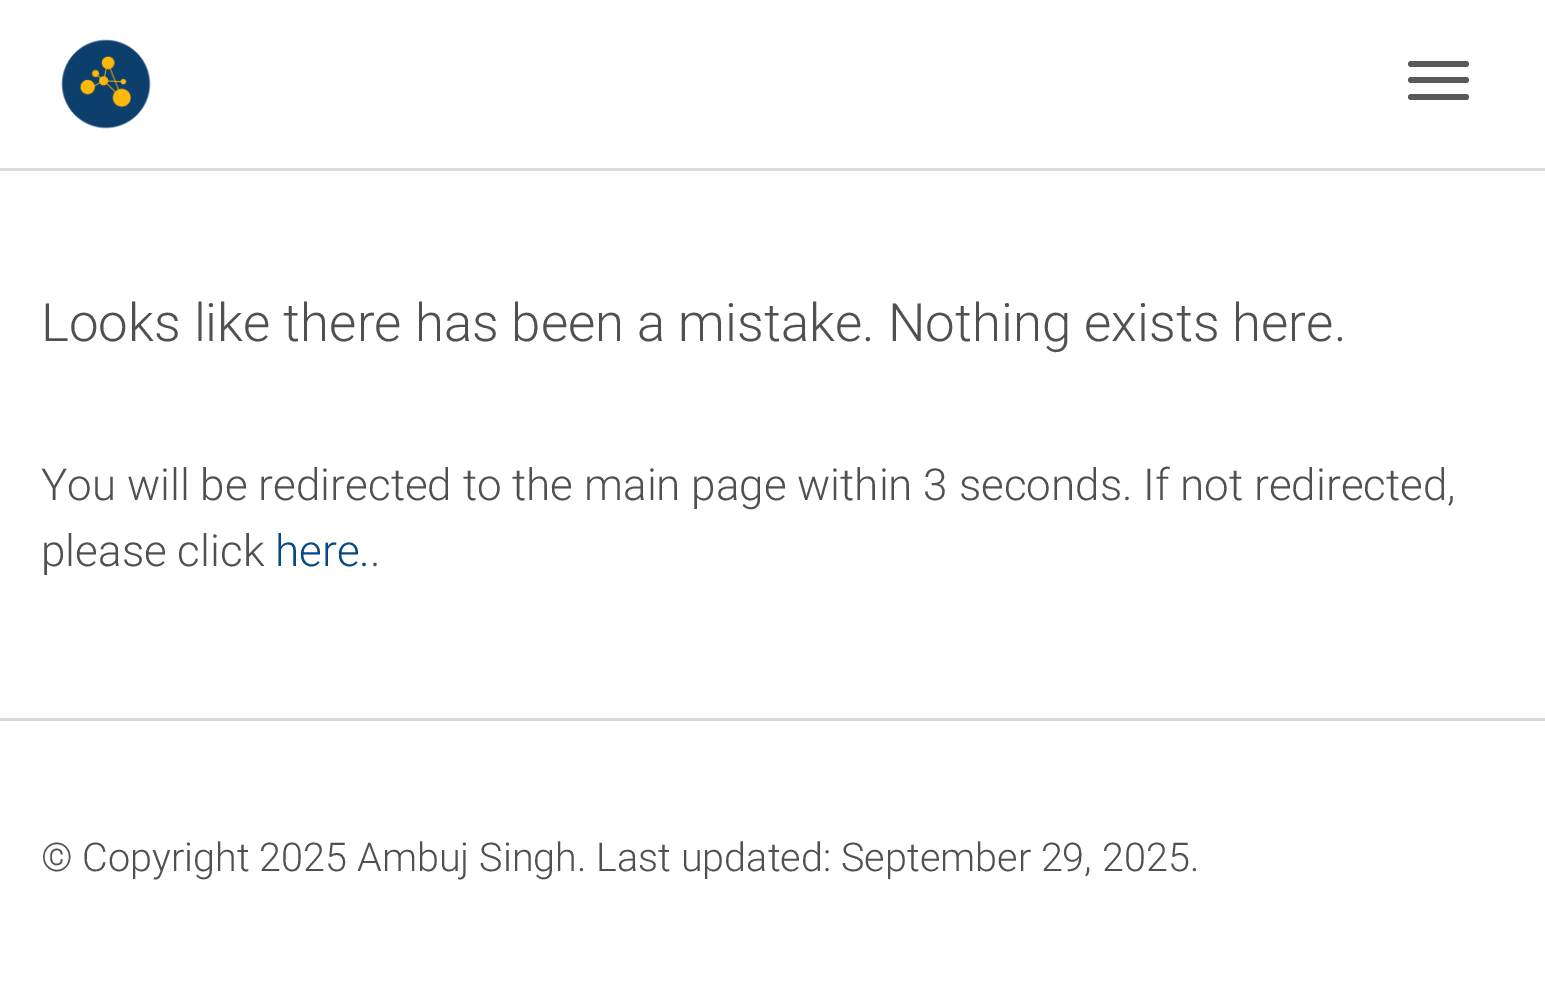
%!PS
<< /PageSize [1545 984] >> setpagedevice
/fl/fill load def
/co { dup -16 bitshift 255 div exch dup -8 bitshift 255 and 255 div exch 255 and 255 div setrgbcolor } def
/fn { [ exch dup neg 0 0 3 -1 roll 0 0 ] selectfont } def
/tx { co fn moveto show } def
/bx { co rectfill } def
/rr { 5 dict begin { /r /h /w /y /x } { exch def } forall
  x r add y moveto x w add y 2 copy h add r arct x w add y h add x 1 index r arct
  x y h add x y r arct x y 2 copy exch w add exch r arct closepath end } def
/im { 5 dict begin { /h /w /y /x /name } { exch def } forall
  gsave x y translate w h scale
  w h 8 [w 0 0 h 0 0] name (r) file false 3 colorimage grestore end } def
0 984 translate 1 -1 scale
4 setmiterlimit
0 0 1545 984 16#FFFFFF bx
0 168 1545 3 16#DBDBDB bx
(media/1.raw) 61 39 90 90 im
16#595959 co
1408 61 61 6 3 rr fl
1408 77 61 6 3 rr fl
1408 94 61 6 3 rr fl
0 718 1545 3 16#D9D9D9 bx
(Looks like there has been a mistake. Nothing exists here.) 41 341 /Roboto-Light 52.8 16#505050 tx
(You will be redirected to the main page within 3 seconds. If not redirected,) 41 500 /Roboto-Light 44 16#505050 tx
(please click) 41 566 /Roboto-Light 44 16#505050 tx
(here.) 275 566 /Roboto-Light 44 16#044981 tx
(.) 370 566 /Roboto-Light 44 16#505050 tx
(© Copyright 2025 Ambuj Singh. Last updated: September 29, 2025.) 41 871 /Roboto-Light 39.6 16#505050 tx
showpage
